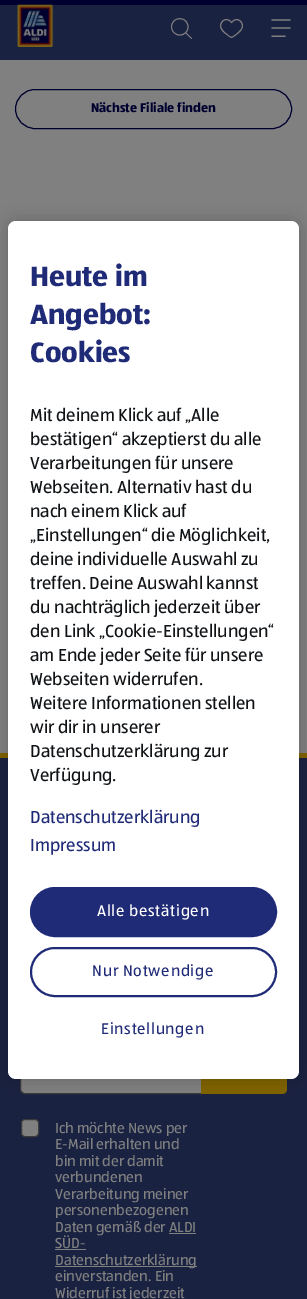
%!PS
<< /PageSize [307 1299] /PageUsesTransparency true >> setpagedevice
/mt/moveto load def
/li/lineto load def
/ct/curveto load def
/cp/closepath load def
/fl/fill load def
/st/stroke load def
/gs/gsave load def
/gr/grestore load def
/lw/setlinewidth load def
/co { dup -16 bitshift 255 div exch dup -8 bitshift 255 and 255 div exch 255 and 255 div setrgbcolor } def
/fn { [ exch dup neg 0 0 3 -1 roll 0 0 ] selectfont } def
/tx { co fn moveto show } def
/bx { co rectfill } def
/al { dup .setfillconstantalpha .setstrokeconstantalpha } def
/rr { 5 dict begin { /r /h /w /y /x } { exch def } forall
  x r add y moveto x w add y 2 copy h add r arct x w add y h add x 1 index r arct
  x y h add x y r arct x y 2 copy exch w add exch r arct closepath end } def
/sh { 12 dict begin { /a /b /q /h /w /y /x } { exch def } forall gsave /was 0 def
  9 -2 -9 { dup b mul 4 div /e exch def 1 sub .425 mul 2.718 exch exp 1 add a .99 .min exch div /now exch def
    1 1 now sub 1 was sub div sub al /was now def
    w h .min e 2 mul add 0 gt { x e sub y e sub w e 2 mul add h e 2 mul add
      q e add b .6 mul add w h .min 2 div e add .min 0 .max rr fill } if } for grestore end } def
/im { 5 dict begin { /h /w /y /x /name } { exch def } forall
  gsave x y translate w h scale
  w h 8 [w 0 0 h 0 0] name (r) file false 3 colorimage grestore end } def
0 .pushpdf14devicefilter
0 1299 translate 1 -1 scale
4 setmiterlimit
0 0 307 1299 16#808080 bx
0 5 307 55 16#1A2242 bx
0 0 307 5 16#000030 bx
(media/1.raw) 17 4 37 43 im
(media/2.raw) 171 18 21 21 im
(media/3.raw) 220 19 23 19 im
(media/4.raw) 271 19 20 18 im
15.5 89.5 276 39 19.5 rr st
0 758 307 541 16#1A2242 bx
0 753 307 5 16#806400 bx
16#808080 co
25 1044.5 mt 201.5 1044.5 li 201.5 1093.5 li 25 1093.5 li 22.5 1093.5 20.5 1091.5 20.5 1089 ct 20.5 1049 li 20.5 1046.5 22.5 1044.5 25 1044.5 ct cp gs fl gr
16#3A3A3A co
st
16#806400 co
201 1044 mt 282 1044 li 285 1044 287 1046 287 1049 ct 287 1089 li 287 1092 285 1094 282 1094 ct 201 1094 li cp fl
16#000000 co
8 221 291 858 8 9 .2 sh
16#FFFFFF co
8 221 291 858 8 rr fl
16#202B78 co
31 888 245 48 24 rr gs fl gr
2 lw
st
31 948 245 48 24 rr st
16#808080 co
21.5 1119.5 17 17 3.5 rr gs fl gr
16#3A3A3A co
1 lw
st
55 1249 31 1 16#808080 bx
169 1233 27 1 16#808080 bx
55 1266 142 1 16#808080 bx
(Nächste Filiale finden) 91 112 /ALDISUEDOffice-Bold 13 16#000030 tx
(Heute im) 30 286 /ALDISUEDOffice-Bold 29 16#202B78 tx
(Angebot:) 30 324 /ALDISUEDOffice-Bold 29 16#202B78 tx
(Cookies) 30 362 /ALDISUEDOffice-Bold 29 16#202B78 tx
(Mit deinem Klick auf „Alle) 30 421 /ALDISUEDOffice-Regular 18 16#101316 tx
(bestätigen“ akzeptierst du alle) 30 445 /ALDISUEDOffice-Regular 18 16#101316 tx
(Verarbeitungen für unsere) 30 469 /ALDISUEDOffice-Regular 18 16#101316 tx
(Webseiten. Alternativ hast du) 30 493 /ALDISUEDOffice-Regular 18 16#101316 tx
(nach einem Klick auf) 30 517 /ALDISUEDOffice-Regular 18 16#101316 tx
(„Einstellungen“ die Möglichkeit,) 30 541 /ALDISUEDOffice-Regular 18 16#101316 tx
(deine individuelle Auswahl zu) 30 565 /ALDISUEDOffice-Regular 18 16#101316 tx
(treffen. Deine Auswahl kannst) 30 589 /ALDISUEDOffice-Regular 18 16#101316 tx
(du nachträglich jederzeit über) 30 613 /ALDISUEDOffice-Regular 18 16#101316 tx
(den Link „Cookie-Einstellungen“) 30 637 /ALDISUEDOffice-Regular 18 16#101316 tx
(am Ende jeder Seite für unsere) 30 661 /ALDISUEDOffice-Regular 18 16#101316 tx
(Webseiten widerrufen.) 30 685 /ALDISUEDOffice-Regular 18 16#101316 tx
(Weitere Informationen stellen) 30 709 /ALDISUEDOffice-Regular 18 16#101316 tx
(wir dir in unserer) 30 733 /ALDISUEDOffice-Regular 18 16#101316 tx
(Datenschutzerklärung zur) 30 757 /ALDISUEDOffice-Regular 18 16#101316 tx
(Verfügung.) 30 781 /ALDISUEDOffice-Regular 18 16#101316 tx
(Datenschutzerklärung) 30 823 /ALDISUEDOffice-Regular 18 16#202B78 tx
(Impressum) 30 851 /ALDISUEDOffice-Regular 18 16#202B78 tx
/ALDISUEDOffice-Regular 16 fn
16#FFFFFF co
97 916 mt .75 0 (Alle bestätigen) ashow
16#202B78 co
92 976 mt .75 0 (Nur Notwendige) ashow
101 1034 mt .75 0 (Einstellungen) ashow
(Ich möchte News per) 55 1133 /ALDISUEDOffice-Regular 15 16#808080 tx
(E-Mail erhalten und) 55 1149 /ALDISUEDOffice-Regular 15 16#808080 tx
(bin mit der damit) 55 1166 /ALDISUEDOffice-Regular 15 16#808080 tx
(verbundenen) 55 1182 /ALDISUEDOffice-Regular 15 16#808080 tx
(Verarbeitung meiner) 55 1199 /ALDISUEDOffice-Regular 15 16#808080 tx
(personenbezogenen) 55 1215 /ALDISUEDOffice-Regular 15 16#808080 tx
(Daten gemäß der ALDI) 55 1232 /ALDISUEDOffice-Regular 15 16#808080 tx
(SÜD-) 55 1248 /ALDISUEDOffice-Regular 15 16#808080 tx
(Datenschutzerklärung) 55 1265 /ALDISUEDOffice-Regular 15 16#808080 tx
(einverstanden. Ein) 55 1281 /ALDISUEDOffice-Regular 15 16#808080 tx
(Widerruf ist jederzeit) 55 1298 /ALDISUEDOffice-Regular 15 16#808080 tx
.poppdf14devicefilter showpage
